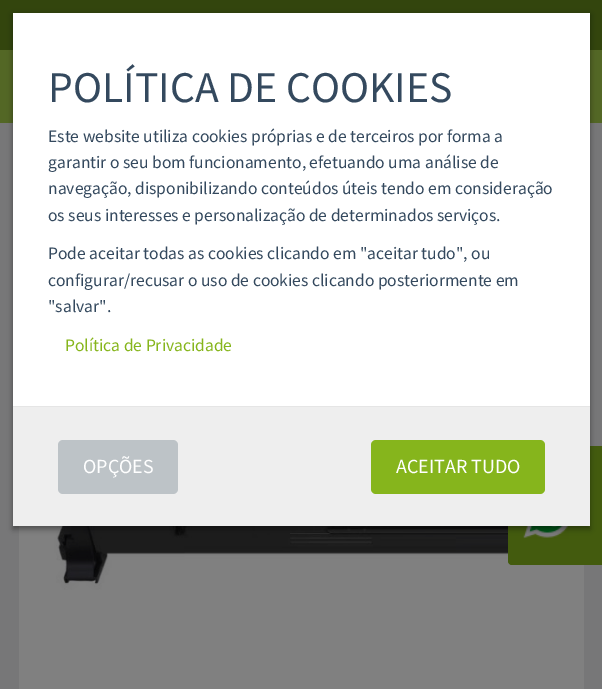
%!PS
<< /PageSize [602 689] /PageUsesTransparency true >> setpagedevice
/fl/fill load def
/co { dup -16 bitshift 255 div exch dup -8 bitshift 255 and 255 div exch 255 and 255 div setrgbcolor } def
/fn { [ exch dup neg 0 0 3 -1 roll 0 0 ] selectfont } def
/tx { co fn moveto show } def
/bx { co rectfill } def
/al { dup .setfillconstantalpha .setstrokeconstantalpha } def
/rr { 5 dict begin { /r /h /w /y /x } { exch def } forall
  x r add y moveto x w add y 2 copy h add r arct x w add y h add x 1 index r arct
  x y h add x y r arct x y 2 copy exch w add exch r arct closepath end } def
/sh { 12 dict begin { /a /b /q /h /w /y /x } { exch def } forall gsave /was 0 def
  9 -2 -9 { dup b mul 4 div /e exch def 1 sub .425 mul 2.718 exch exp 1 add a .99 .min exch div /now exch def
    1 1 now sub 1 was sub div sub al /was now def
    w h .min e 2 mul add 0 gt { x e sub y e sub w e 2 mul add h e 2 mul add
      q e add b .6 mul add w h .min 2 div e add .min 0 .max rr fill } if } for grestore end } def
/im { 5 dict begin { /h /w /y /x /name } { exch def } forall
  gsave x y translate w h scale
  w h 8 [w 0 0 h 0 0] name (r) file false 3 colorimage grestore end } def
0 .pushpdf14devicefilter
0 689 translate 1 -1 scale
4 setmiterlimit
0 0 602 689 16#777778 bx
0 50 602 73 16#536725 bx
0 0 602 50 16#33450D bx
19 590 565 99 16#808080 bx
(media/1.raw) 19 526 565 64 im
16#435B0E co
508 446 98 119 4 rr fl
(media/2.raw) 523 526 46 13 im
16#000000 co
13 15 577 514 0 3 .4 sh
13 13 577 393 16#FFFFFF bx
13 407 577 119 16#EEEEEE bx
13 406 577 1 16#E5E5E5 bx
16#BDC3C7 co
58 440 120 54 5 rr fl
16#86B51C co
371 440 174 54 5 rr fl
(POLÍTICA DE COOKIES) 48 102 /SourceSansPro-Regular 43.75 16#34495E tx
(Este website utiliza cookies próprias e de terceiros por forma a) 48 142 /SourceSansPro-Regular 17.5 16#34495E tx
(garantir o seu bom funcionamento, efetuando uma análise de) 48 168 /SourceSansPro-Regular 17.5 16#34495E tx
(navegação, disponibilizando conteúdos úteis tendo em consideração) 48 194 /SourceSansPro-Regular 17.5 16#34495E tx
(os seus interesses e personalização de determinados serviços.) 48 221 /SourceSansPro-Regular 17.5 16#34495E tx
(Pode aceitar todas as cookies clicando em "aceitar tudo", ou) 48 259 /SourceSansPro-Regular 17.5 16#34495E tx
(configurar/recusar o uso de cookies clicando posteriormente em) 48 286 /SourceSansPro-Regular 17.5 16#34495E tx
("salvar".) 48 312 /SourceSansPro-Regular 17.5 16#34495E tx
(Política de Privacidade) 65 351 /SourceSansPro-Regular 17.5 16#86B51C tx
(OPÇÕES) 83 473 /SourceSansPro-Regular 20 16#FFFFFF tx
(ACEITAR TUDO) 396 473 /SourceSansPro-Regular 20 16#FFFFFF tx
.poppdf14devicefilter showpage
